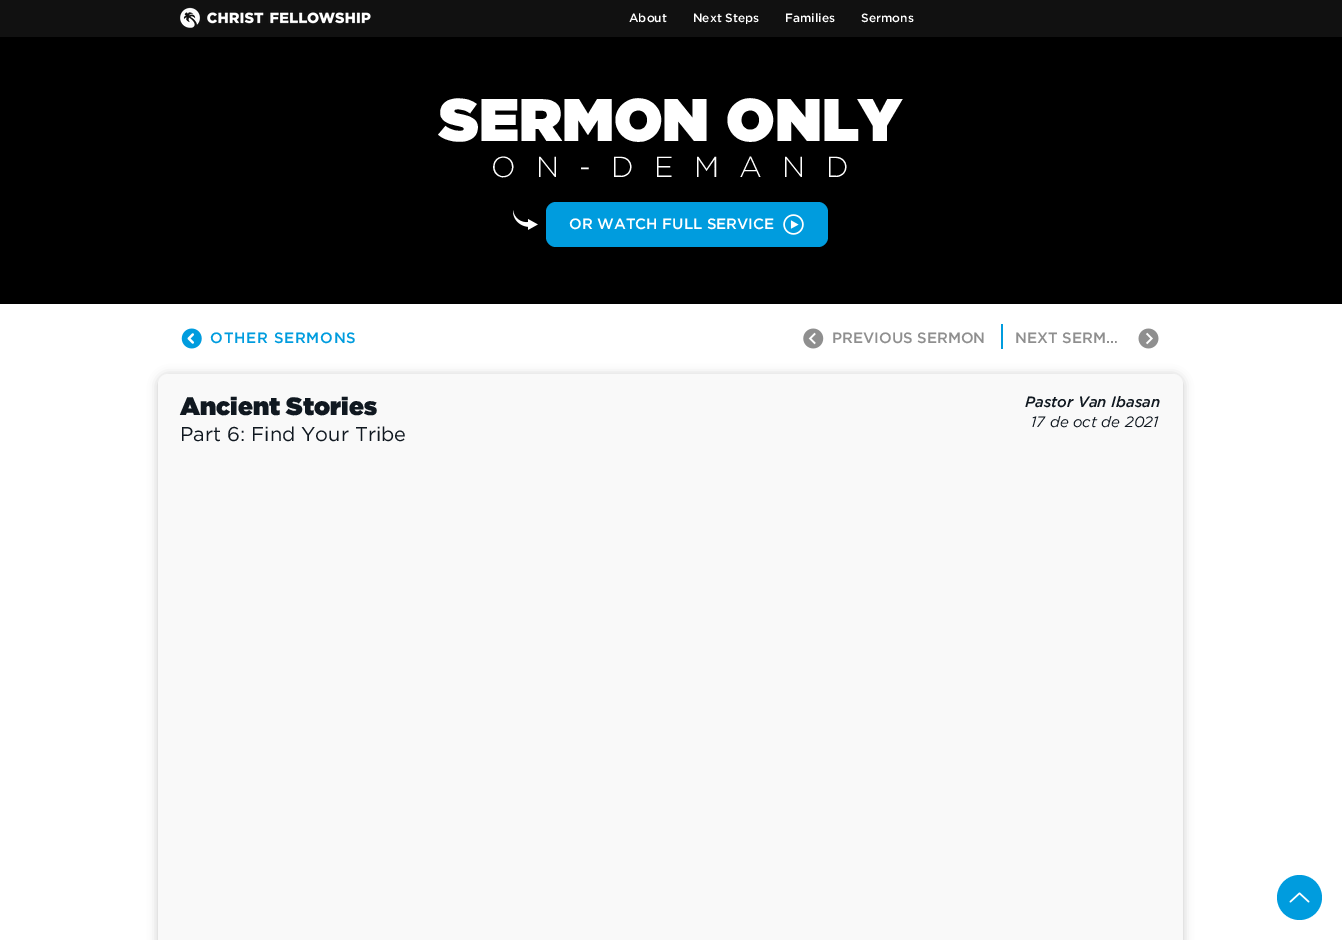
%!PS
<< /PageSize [1342 940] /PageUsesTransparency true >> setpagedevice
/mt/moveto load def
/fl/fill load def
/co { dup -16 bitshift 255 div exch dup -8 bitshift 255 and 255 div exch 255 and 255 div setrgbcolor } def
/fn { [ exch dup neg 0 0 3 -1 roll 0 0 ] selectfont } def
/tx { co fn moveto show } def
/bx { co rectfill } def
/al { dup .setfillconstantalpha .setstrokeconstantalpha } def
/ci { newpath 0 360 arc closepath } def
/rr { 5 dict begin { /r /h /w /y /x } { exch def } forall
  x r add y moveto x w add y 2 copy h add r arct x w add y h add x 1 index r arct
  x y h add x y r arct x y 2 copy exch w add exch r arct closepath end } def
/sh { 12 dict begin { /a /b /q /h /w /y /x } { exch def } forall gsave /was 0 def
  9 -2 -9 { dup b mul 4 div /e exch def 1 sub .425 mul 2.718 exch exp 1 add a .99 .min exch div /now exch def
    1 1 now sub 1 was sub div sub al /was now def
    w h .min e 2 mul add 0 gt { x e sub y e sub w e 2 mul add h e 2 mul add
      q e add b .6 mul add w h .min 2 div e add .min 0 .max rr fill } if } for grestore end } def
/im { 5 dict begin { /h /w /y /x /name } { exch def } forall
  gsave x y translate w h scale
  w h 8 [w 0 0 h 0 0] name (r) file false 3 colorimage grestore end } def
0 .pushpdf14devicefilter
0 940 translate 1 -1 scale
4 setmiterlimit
0 0 1342 940 16#FFFFFF bx
0 0 1342 37 16#111111 bx
(media/1.raw) 180 7 191 21 im
0 37 1342 267 16#000000 bx
(media/2.raw) 513 210 25 20 im
16#009CDE co
546 202 282 45 10 rr fl
(media/3.raw) 783 214 21 21 im
(media/4.raw) 181 328 21 21 im
(media/5.raw) 803 328 21 21 im
1001 324 2 25 16#009CDE bx
(media/6.raw) 1138 328 21 21 im
16#000000 co
158 375 1025 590 10 5 .22 sh
16#F9F9F9 co
158 374 1025 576 10 rr fl
16#009CDE co
1299.5 897.5 22.5 ci fl
(media/7.raw) 1289 892 21 11 im
(About) 629 22 /Gotham-Medium 12 16#FFFFFF tx
(Next Steps) 693 22 /Gotham-Medium 12 16#FFFFFF tx
(Families) 785 22 /Gotham-Medium 12 16#FFFFFF tx
(Sermons) 861 22 /Gotham-Medium 12 16#FFFFFF tx
(SERMON) 439 141 /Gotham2-Medium 60 16#FFFFFF tx
(ONLY) 726 141 /Gotham2-Medium 60 16#FFFFFF tx
/Gotham-Light 29 fn
491 177 mt 20.25 0 (ON-DEMAN) ashow
826 177 mt 1 0 (D) ashow
(OR WATCH FULL SERVICE) 569 229 /Gotham-Medium 15 16#FFFFFF tx
16#009CDE co
210 343 mt .75 0 (OTHER SERMONS) ashow
(PREVIOUS SERMON) 832 343 /Gotham-Medium 15 16#8F8F8F tx
(NEXT SERM…) 1015 343 /Gotham-Medium 15 16#8F8F8F tx
(Ancient Stories) 180 415 /Gotham2-Medium 25 16#101820 tx
(Part 6: Find Your Tribe) 180 441 /Gotham-Regular 20 16#101820 tx
(Pastor Van Ibasan) 1025 407 /Gotham-MediumItalic 15 16#101820 tx
(17 de oct de 2021) 1031 427 /Gotham-Italic 15 16#101820 tx
.poppdf14devicefilter showpage
